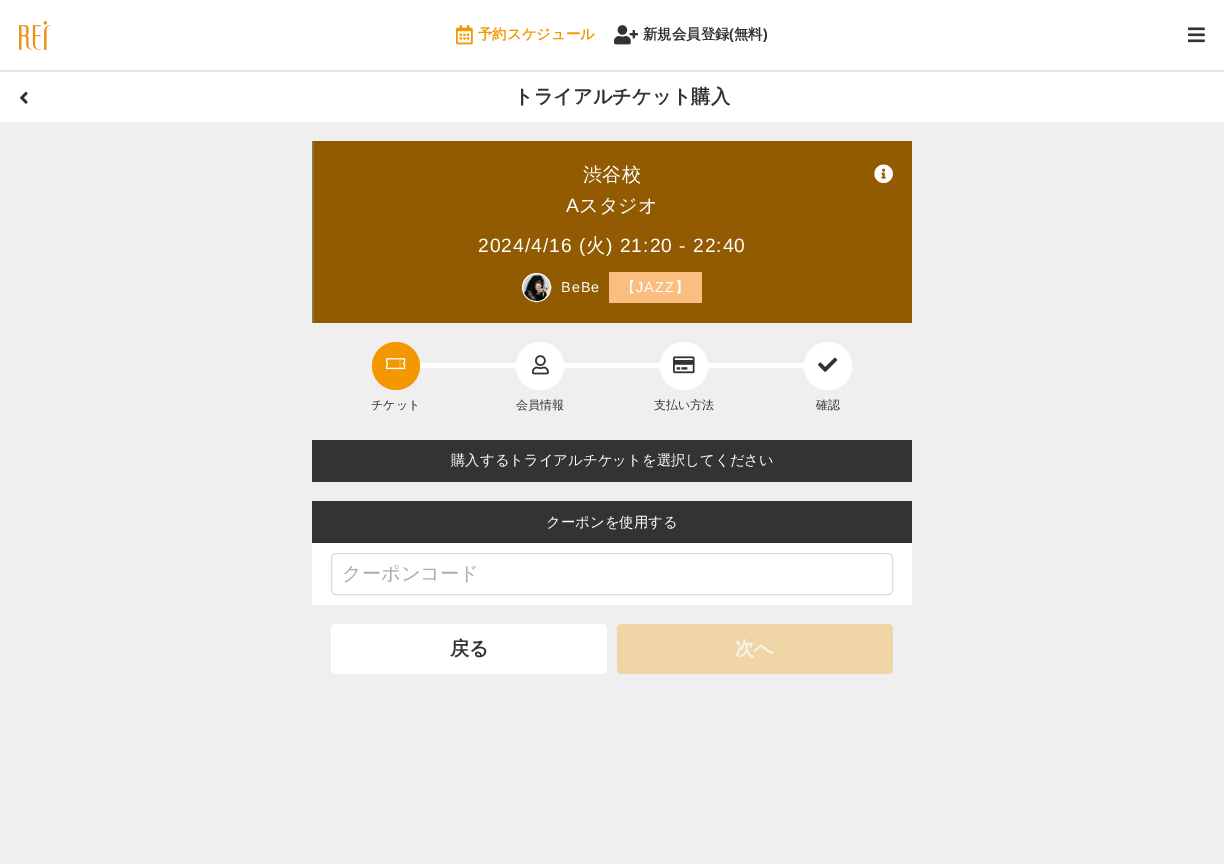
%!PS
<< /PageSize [1224 864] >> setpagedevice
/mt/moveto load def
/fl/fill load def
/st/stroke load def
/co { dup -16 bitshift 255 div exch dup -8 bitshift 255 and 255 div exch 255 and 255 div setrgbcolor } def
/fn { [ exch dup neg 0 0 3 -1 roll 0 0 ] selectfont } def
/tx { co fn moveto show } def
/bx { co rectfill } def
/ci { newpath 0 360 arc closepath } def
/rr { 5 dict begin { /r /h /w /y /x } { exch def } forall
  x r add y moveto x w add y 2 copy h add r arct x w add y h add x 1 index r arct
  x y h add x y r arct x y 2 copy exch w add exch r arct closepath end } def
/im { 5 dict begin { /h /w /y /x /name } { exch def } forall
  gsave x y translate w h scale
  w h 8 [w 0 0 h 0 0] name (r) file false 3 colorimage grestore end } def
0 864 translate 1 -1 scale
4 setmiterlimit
0 0 1224 864 16#EFEFEF bx
0 0 1224 70 16#FFFFFF bx
0 70 1224 2 16#E6E6E6 bx
(media/1.raw) 19 21 31 29 im
(media/2.raw) 456 25 17 20 im
(media/3.raw) 614 25 24 20 im
(media/4.raw) 1188 27 17 16 im
0 72 1224 50 16#FFFFFF bx
(media/5.raw) 20 91 8 13 im
(media/6.raw) 312 141 600 182 im
(media/7.raw) 874 164 19 20 im
536.5 287.5 14 ci st
(media/8.raw) 523 274 27 27 im
609 272 93 31 16#FABF80 bx
372 363 480 5 16#FFFFFF bx
16#F39800 co
396 366 24 ci fl
(media/9.raw) 386 358 20 12 im
16#FFFFFF co
540 366 24 ci fl
(media/10.raw) 532 355 17 20 im
684 366 24 ci fl
(media/11.raw) 673 356 22 18 im
828 366 24 ci fl
(media/12.raw) 818 357 20 15 im
312 440 600 42 16#333333 bx
312 543 600 62 16#FFFFFF bx
312 501 600 42 16#333333 bx
16#DDDDDD co
331.5 553.5 561 41 4.5 rr st
16#FFFFFF co
331 624 276 50 5 rr fl
16#F0D5A7 co
617 624 276 50 5 rr fl
(予約スケジュール) 478 39 /WenQuanYiZenHei-Bold 14.4 16#F39800 tx
(新規会員登録) 643 39 /WenQuanYiZenHei-Bold 14.4 16#333333 tx
(\() 729 39 /LiberationSans-Bold 14.4 16#333333 tx
(無料) 734 39 /WenQuanYiZenHei-Bold 14.4 16#333333 tx
(\)) 763 39 /LiberationSans-Bold 14.4 16#333333 tx
(トライアルチケット購入) 514 103 /WenQuanYiZenHei-Bold 19.25 16#333333 tx
(渋谷校) 583 181 /WenQuanYiZenHei-Medium 19.25 16#FFFFFF tx
(A) 566 212 /LiberationSans-Regular 19.25 16#FFFFFF tx
(スタジオ) 579 212 /WenQuanYiZenHei-Medium 19.25 16#FFFFFF tx
/LiberationSans-Regular 19.25 fn
478 252 mt 1 0 (2024/4/16 \() ashow
/WenQuanYiZenHei-Medium 19.25 fn
586 252 mt 1 0 (火) ashow
/LiberationSans-Regular 19.25 fn
606 252 mt 1 0 (\) 21:20 - 22:40) ashow
/LiberationSans-Regular 14.4 fn
561 292 mt 1 0 (BeBe) ashow
/WenQuanYiZenHei-Medium 14.4 fn
621 292 mt 1 0 (【) ashow
/LiberationSans-Regular 14.4 fn
636 292 mt 1 0 (JAZZ) ashow
/WenQuanYiZenHei-Medium 14.4 fn
675 292 mt 1 0 (】) ashow
(チケット) 371 409 /WenQuanYiZenHei-Medium 12 16#333333 tx
(会員情報) 516 409 /WenQuanYiZenHei-Medium 12 16#333333 tx
(支払い方法) 654 409 /WenQuanYiZenHei-Medium 12 16#333333 tx
(確認) 816 409 /WenQuanYiZenHei-Medium 12 16#333333 tx
(購入するトライアルチケットを選択してください) 451 465 /WenQuanYiZenHei-Medium 14.4 16#FFFFFF tx
(クーポンを使用する) 546 527 /WenQuanYiZenHei-Medium 14.4 16#FFFFFF tx
(クーポンコード) 342 580 /WenQuanYiZenHei-Medium 19.25 16#AAAAAA tx
(戻る) 450 655 /WenQuanYiZenHei-Bold 19.25 16#333333 tx
(次へ) 735 655 /WenQuanYiZenHei-Bold 19.25 16#F4F4F4 tx
showpage
